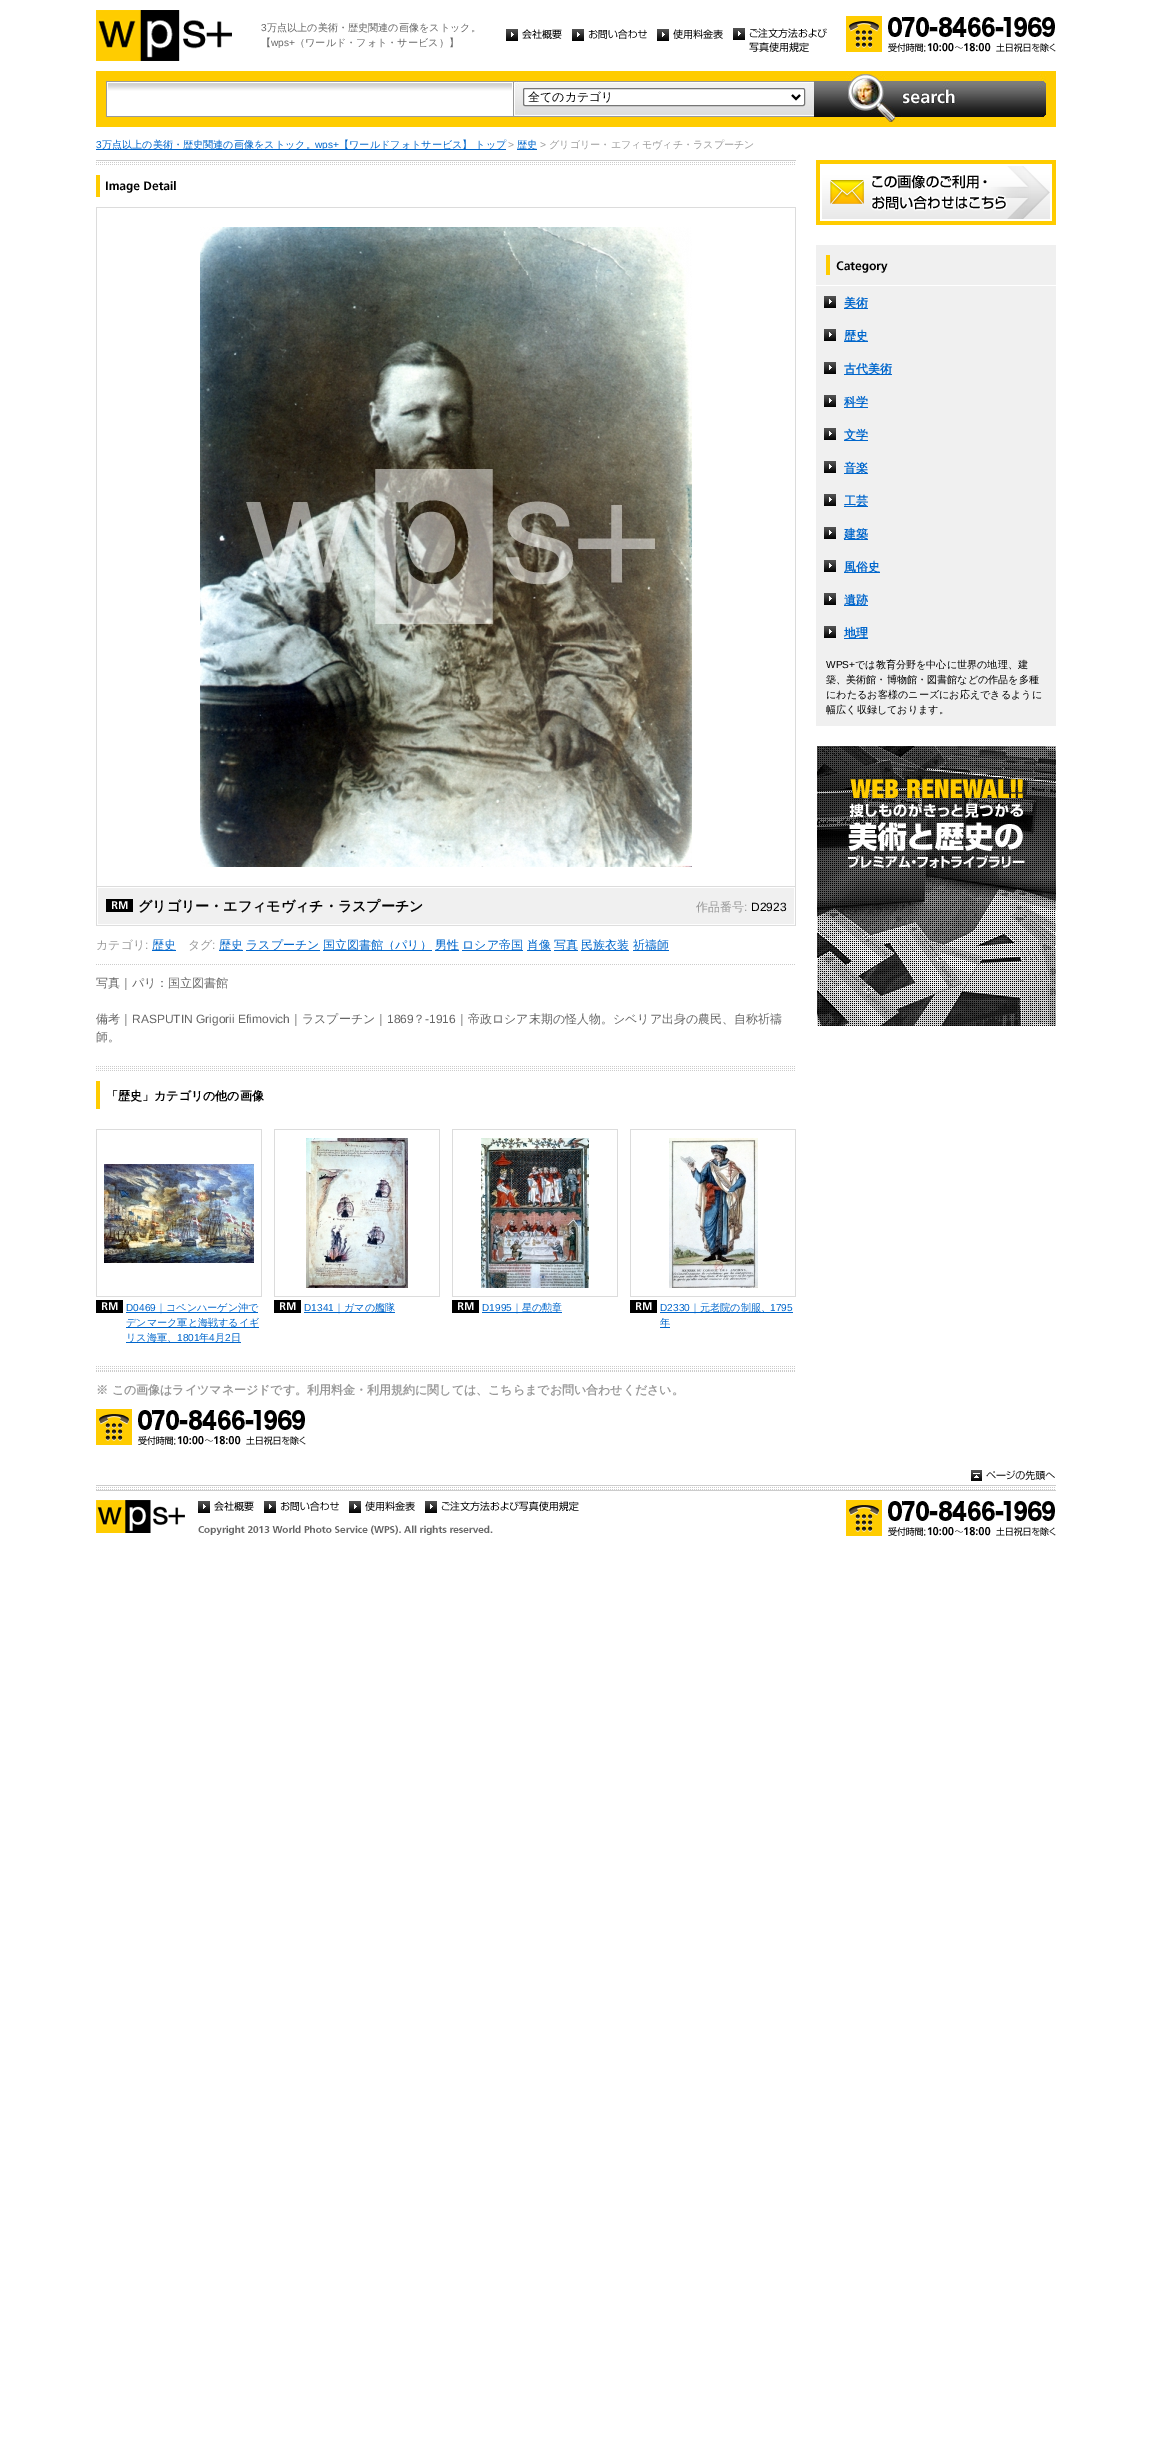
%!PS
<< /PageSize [1152 2462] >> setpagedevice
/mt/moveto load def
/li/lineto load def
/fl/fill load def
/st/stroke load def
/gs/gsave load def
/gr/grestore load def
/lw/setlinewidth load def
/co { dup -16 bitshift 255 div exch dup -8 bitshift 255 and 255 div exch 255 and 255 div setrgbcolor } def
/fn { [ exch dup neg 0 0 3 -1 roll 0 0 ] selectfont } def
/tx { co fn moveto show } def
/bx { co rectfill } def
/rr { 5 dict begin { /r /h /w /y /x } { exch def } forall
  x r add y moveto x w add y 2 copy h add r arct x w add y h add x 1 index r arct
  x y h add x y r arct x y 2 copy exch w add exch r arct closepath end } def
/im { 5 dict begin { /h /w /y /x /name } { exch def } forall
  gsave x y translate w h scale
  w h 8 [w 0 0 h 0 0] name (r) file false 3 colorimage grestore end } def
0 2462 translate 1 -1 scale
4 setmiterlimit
0 0 1152 2462 16#FFFFFF bx
(media/1.raw) 96 10 136 51 im
(media/2.raw) 506 29 56 12 im
(media/3.raw) 572 29 75 12 im
(media/4.raw) 657 29 66 12 im
(media/5.raw) 733 28 94 24 im
(media/6.raw) 846 16 210 36 im
96 71 960 56 16#FFCC00 bx
(media/7.raw) 106 81 407 36 im
(media/8.raw) 513 81 301 36 im
16#FFFFFF co
523.5 88.5 281 17 1.5 rr gs fl gr
16#767676 co
st
16#000000 co
2 lw
792 95 mt 796 99 li 800 95 li st
(media/9.raw) 814 74 232 48 im
96 149 410 1 16#0066CC bx
517 149 20 1 16#0066CC bx
(media/10.raw) 816 160 240 65 im
(media/11.raw) 816 245 240 40 im
816 286 240 440 16#F0F0F0 bx
(media/12.raw) 824 296 12 12 im
844 308 24 1 16#0066CC bx
(media/12.raw) 824 329 12 12 im
844 341 24 1 16#0066CC bx
(media/12.raw) 824 362 12 12 im
844 374 48 1 16#0066CC bx
(media/12.raw) 824 395 12 12 im
844 407 24 1 16#0066CC bx
(media/12.raw) 824 428 12 12 im
844 440 24 1 16#0066CC bx
(media/12.raw) 824 461 12 12 im
844 473 24 1 16#0066CC bx
(media/12.raw) 824 494 12 12 im
844 506 24 1 16#0066CC bx
(media/12.raw) 824 527 12 12 im
844 539 24 1 16#0066CC bx
(media/12.raw) 824 560 12 12 im
844 572 36 1 16#0066CC bx
(media/12.raw) 824 593 12 12 im
844 605 24 1 16#0066CC bx
(media/12.raw) 824 626 12 12 im
844 638 24 1 16#0066CC bx
(media/13.raw) 817 746 239 280 im
(media/14.raw) 96 160 700 5 im
96 175 4 22 16#FFCC00 bx
(media/15.raw) 106 181 70 12 im
96 207 700 1 16#DCDCDC bx
795 207 1 680 16#DCDCDC bx
96 207 1 680 16#DCDCDC bx
(media/16.raw) 200 227 492 640 im
(media/17.raw) 96 886 700 40 im
(media/18.raw) 97 886 698 2 im
(media/19.raw) 106 899 27 13 im
152 950 24 1 16#0066CC bx
219 950 24 1 16#0066CC bx
246 950 74 1 16#0066CC bx
323 950 109 1 16#0066CC bx
435 950 24 1 16#0066CC bx
462 950 61 1 16#0066CC bx
527 950 24 1 16#0066CC bx
554 950 24 1 16#0066CC bx
581 950 48 1 16#0066CC bx
633 950 36 1 16#0066CC bx
(media/20.raw) 96 964 699 1 im
(media/21.raw) 96 1066 699 5 im
96 1081 4 28 16#FFCC00 bx
96 1129 166 1 16#DCDCDC bx
261 1129 1 168 16#DCDCDC bx
96 1296 166 1 16#DCDCDC bx
96 1129 1 168 16#DCDCDC bx
(media/22.raw) 104 1164 150 99 im
(media/19.raw) 96 1300 27 13 im
126 1312 132 1 16#0066CC bx
126 1327 133 1 16#0066CC bx
126 1342 115 1 16#0066CC bx
274 1129 166 1 16#DCDCDC bx
439 1129 1 168 16#DCDCDC bx
274 1296 166 1 16#DCDCDC bx
274 1129 1 168 16#DCDCDC bx
(media/23.raw) 306 1138 102 150 im
(media/19.raw) 274 1300 27 13 im
304 1312 91 1 16#0066CC bx
452 1129 166 1 16#DCDCDC bx
617 1129 1 168 16#DCDCDC bx
452 1296 166 1 16#DCDCDC bx
452 1129 1 168 16#DCDCDC bx
(media/24.raw) 481 1138 108 150 im
(media/19.raw) 452 1300 27 13 im
482 1312 80 1 16#0066CC bx
630 1129 166 1 16#DCDCDC bx
795 1129 1 168 16#DCDCDC bx
630 1296 166 1 16#DCDCDC bx
630 1129 1 168 16#DCDCDC bx
(media/25.raw) 669 1138 89 150 im
(media/19.raw) 630 1300 27 13 im
660 1312 133 1 16#0066CC bx
660 1327 10 1 16#0066CC bx
(media/26.raw) 96 1366 699 6 im
(media/6.raw) 96 1409 210 36 im
(media/27.raw) 96 1485 960 6 im
(media/28.raw) 971 1470 84 11 im
(media/29.raw) 96 1500 89 33 im
(media/2.raw) 198 1501 56 12 im
(media/3.raw) 264 1501 75 12 im
(media/4.raw) 349 1501 66 12 im
(media/30.raw) 425 1501 154 12 im
(media/6.raw) 846 1500 210 36 im
(media/31.raw) 198 1525 295 10 im
(3) 261 31 /LiberationSans-Regular 10.1 16#666666 tx
(万点以上の美術・歴史関連の画像をストック。) 267 31 /WenQuanYiZenHei-Medium 10.1 16#666666 tx
(【) 261 46 /WenQuanYiZenHei-Medium 10.1 16#666666 tx
(wps+) 271 46 /LiberationSans-Regular 10.1 16#666666 tx
(（ワールド・フォト・サービス）】) 295 46 /WenQuanYiZenHei-Medium 10.1 16#666666 tx
(全てのカテゴリ) 528 101 /WenQuanYiZenHei-Medium 12 16#000000 tx
(3) 96 148 /LiberationSans-Regular 10.1 16#0066CC tx
(万点以上の美術・歴史関連の画像をストック。) 102 148 /WenQuanYiZenHei-Medium 10.1 16#0066CC tx
(wps+) 315 148 /LiberationSans-Regular 10.1 16#0066CC tx
(【ワールドフォトサービス】 トップ) 339 148 /WenQuanYiZenHei-Medium 10.1 16#0066CC tx
(>) 508 148 /LiberationSans-Regular 10.1 16#999999 tx
(歴史) 517 148 /WenQuanYiZenHei-Medium 10.1 16#0066CC tx
(>) 540 148 /LiberationSans-Regular 10.1 16#999999 tx
(グリゴリー・エフィモヴィチ・ラスプーチン) 549 148 /WenQuanYiZenHei-Medium 10.1 16#999999 tx
(美術) 844 307 /WenQuanYiZenHei-Bold 12 16#0066CC tx
(歴史) 844 340 /WenQuanYiZenHei-Bold 12 16#0066CC tx
(古代美術) 844 373 /WenQuanYiZenHei-Bold 12 16#0066CC tx
(科学) 844 406 /WenQuanYiZenHei-Bold 12 16#0066CC tx
(文学) 844 439 /WenQuanYiZenHei-Bold 12 16#0066CC tx
(音楽) 844 472 /WenQuanYiZenHei-Bold 12 16#0066CC tx
(工芸) 844 505 /WenQuanYiZenHei-Bold 12 16#0066CC tx
(建築) 844 538 /WenQuanYiZenHei-Bold 12 16#0066CC tx
(風俗史) 844 571 /WenQuanYiZenHei-Bold 12 16#0066CC tx
(遺跡) 844 604 /WenQuanYiZenHei-Bold 12 16#0066CC tx
(地理) 844 637 /WenQuanYiZenHei-Bold 12 16#0066CC tx
(WPS+) 826 668 /LiberationSans-Regular 10.1 16#000000 tx
(では教育分野を中心に世界の地理、建) 855 668 /WenQuanYiZenHei-Medium 10.1 16#000000 tx
(築、美術館・博物館・図書館などの作品を多種) 826 683 /WenQuanYiZenHei-Medium 10.1 16#000000 tx
(にわたるお客様のニーズにお応えできるように) 826 698 /WenQuanYiZenHei-Medium 10.1 16#000000 tx
(幅広く収録しております。) 826 713 /WenQuanYiZenHei-Medium 10.1 16#000000 tx
(グリゴリー・エフィモヴィチ・ラスプーチン) 138 911 /WenQuanYiZenHei-Bold 14 16#000000 tx
(作品番号) 696 911 /WenQuanYiZenHei-Medium 12 16#999999 tx
(:) 744 911 /LiberationSans-Regular 12 16#999999 tx
(D2923) 751 911 /LiberationSans-Regular 12 16#000000 tx
(カテゴリ) 96 949 /WenQuanYiZenHei-Medium 12 16#999999 tx
(:) 145 949 /LiberationSans-Regular 12 16#999999 tx
(歴史) 152 949 /WenQuanYiZenHei-Medium 12 16#0066CC tx
(タグ) 188 949 /WenQuanYiZenHei-Medium 12 16#999999 tx
(:) 212 949 /LiberationSans-Regular 12 16#999999 tx
(歴史) 219 949 /WenQuanYiZenHei-Medium 12 16#0066CC tx
(ラスプーチン) 246 949 /WenQuanYiZenHei-Medium 12 16#0066CC tx
(国立図書館（パリ）) 323 949 /WenQuanYiZenHei-Medium 12 16#0066CC tx
(男性) 435 949 /WenQuanYiZenHei-Medium 12 16#0066CC tx
(ロシア帝国) 462 949 /WenQuanYiZenHei-Medium 12 16#0066CC tx
(肖像) 527 949 /WenQuanYiZenHei-Medium 12 16#0066CC tx
(写真) 554 949 /WenQuanYiZenHei-Medium 12 16#0066CC tx
(民族衣装) 581 949 /WenQuanYiZenHei-Medium 12 16#0066CC tx
(祈禱師) 633 949 /WenQuanYiZenHei-Medium 12 16#0066CC tx
(写真｜パリ：国立図書館) 96 987 /WenQuanYiZenHei-Medium 12 16#666666 tx
(備考｜) 96 1023 /WenQuanYiZenHei-Medium 12 16#666666 tx
(RASPUTIN Grigorii Efimovich) 132 1023 /LiberationSans-Regular 12 16#666666 tx
(｜ラスプーチン｜) 290 1023 /WenQuanYiZenHei-Medium 12 16#666666 tx
(1869) 387 1023 /LiberationSans-Regular 12 16#666666 tx
(？) 413 1023 /WenQuanYiZenHei-Medium 12 16#666666 tx
(-1916) 425 1023 /LiberationSans-Regular 12 16#666666 tx
(｜帝政ロシア末期の怪人物。シベリア出身の農民、自称祈禱) 456 1023 /WenQuanYiZenHei-Medium 12 16#666666 tx
(師。) 96 1041 /WenQuanYiZenHei-Medium 12 16#666666 tx
(「歴史」カテゴリの他の画像) 106 1100 /WenQuanYiZenHei-Bold 12 16#000000 tx
(D0469) 126 1311 /LiberationSans-Regular 10.1 16#0066CC tx
(｜コペンハーゲン沖で) 156 1311 /WenQuanYiZenHei-Medium 10.1 16#0066CC tx
(デンマーク軍と海戦するイギ) 126 1326 /WenQuanYiZenHei-Medium 10.1 16#0066CC tx
(リス海軍、) 126 1341 /WenQuanYiZenHei-Medium 10.1 16#0066CC tx
(1801) 177 1341 /LiberationSans-Regular 10.1 16#0066CC tx
(年) 199 1341 /WenQuanYiZenHei-Medium 10.1 16#0066CC tx
(4) 209 1341 /LiberationSans-Regular 10.1 16#0066CC tx
(月) 215 1341 /WenQuanYiZenHei-Medium 10.1 16#0066CC tx
(2) 225 1341 /LiberationSans-Regular 10.1 16#0066CC tx
(日) 231 1341 /WenQuanYiZenHei-Medium 10.1 16#0066CC tx
(D1341) 304 1311 /LiberationSans-Regular 10.1 16#0066CC tx
(｜ガマの艦隊) 334 1311 /WenQuanYiZenHei-Medium 10.1 16#0066CC tx
(D1995) 482 1311 /LiberationSans-Regular 10.1 16#0066CC tx
(｜星の勲章) 512 1311 /WenQuanYiZenHei-Medium 10.1 16#0066CC tx
(D2330) 660 1311 /LiberationSans-Regular 10.1 16#0066CC tx
(｜元老院の制服、) 690 1311 /WenQuanYiZenHei-Medium 10.1 16#0066CC tx
(1795) 770 1311 /LiberationSans-Regular 10.1 16#0066CC tx
(年) 660 1326 /WenQuanYiZenHei-Medium 10.1 16#0066CC tx
(※ この画像はライツマネージドです。利用料金・利用規約に関しては、こちらまでお問い合わせください。) 96 1394 /WenQuanYiZenHei-Bold 12 16#999999 tx
showpage
